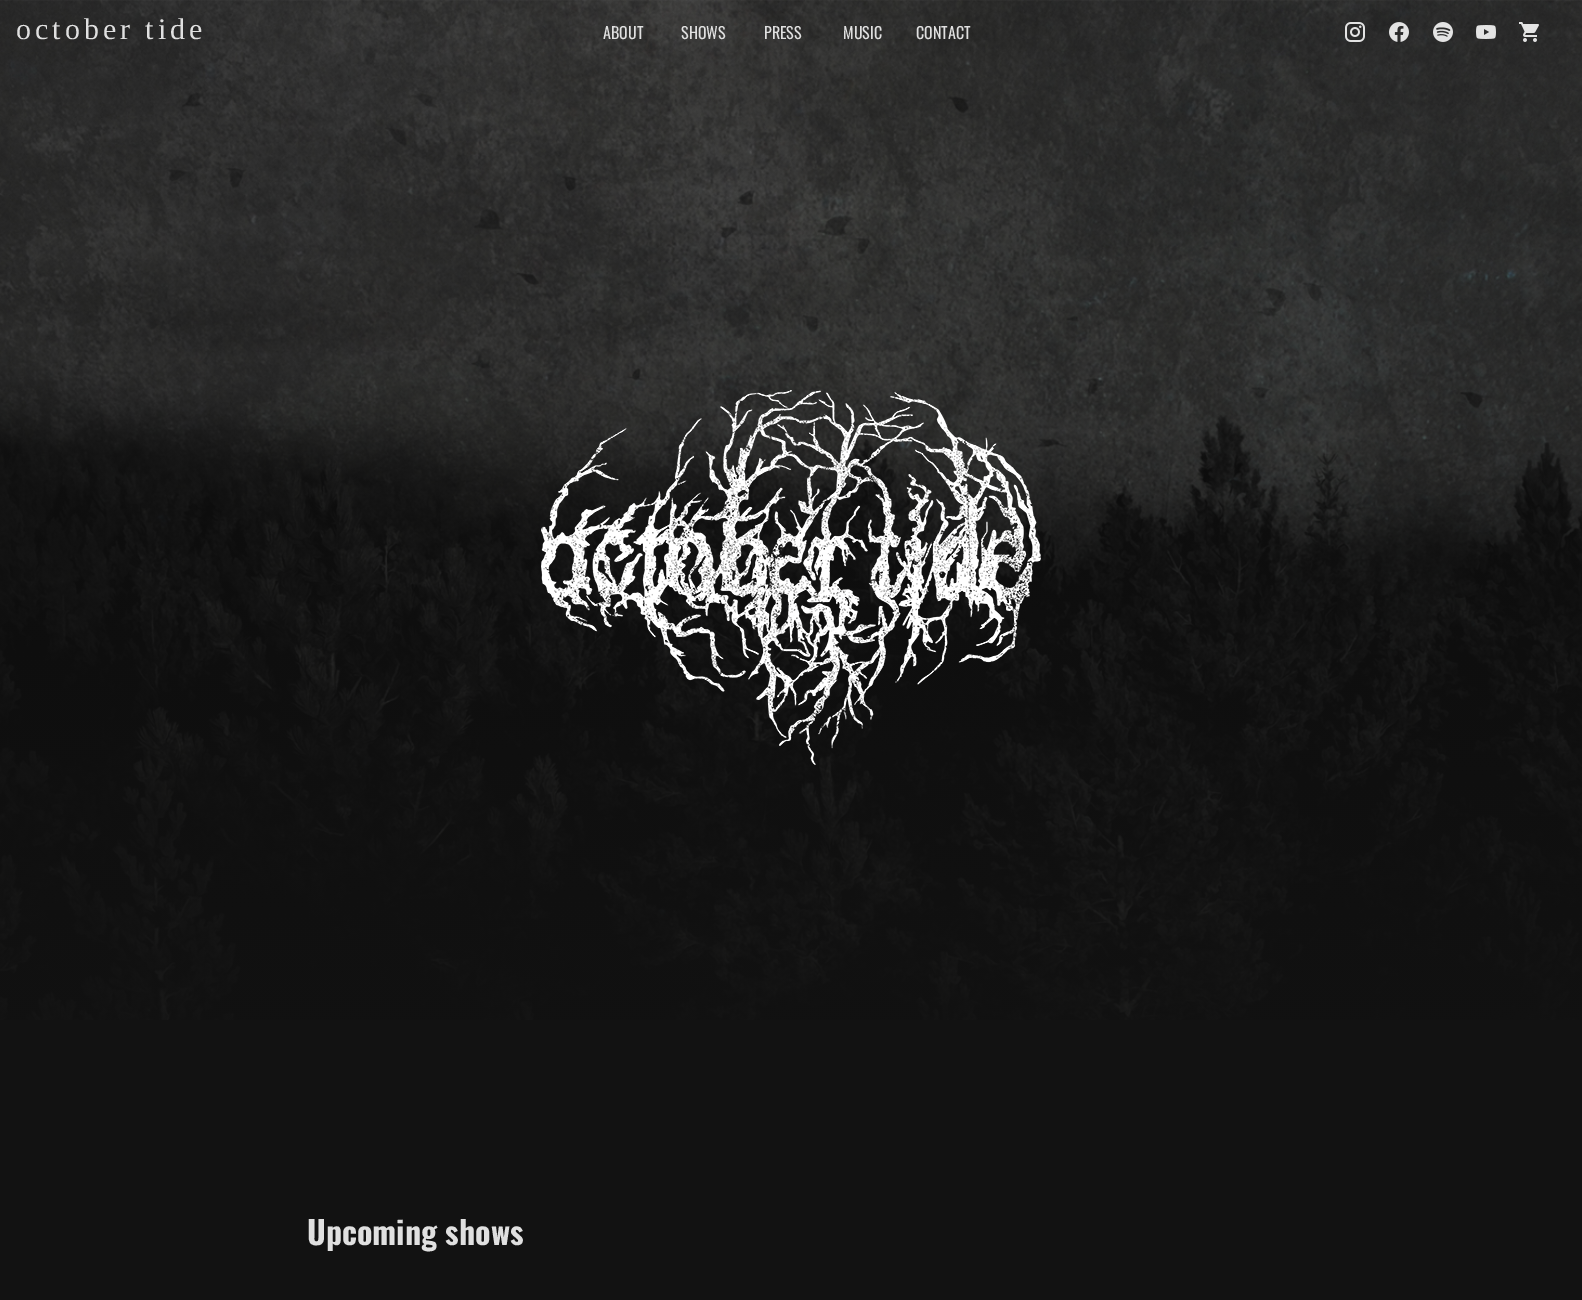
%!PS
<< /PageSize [1582 1300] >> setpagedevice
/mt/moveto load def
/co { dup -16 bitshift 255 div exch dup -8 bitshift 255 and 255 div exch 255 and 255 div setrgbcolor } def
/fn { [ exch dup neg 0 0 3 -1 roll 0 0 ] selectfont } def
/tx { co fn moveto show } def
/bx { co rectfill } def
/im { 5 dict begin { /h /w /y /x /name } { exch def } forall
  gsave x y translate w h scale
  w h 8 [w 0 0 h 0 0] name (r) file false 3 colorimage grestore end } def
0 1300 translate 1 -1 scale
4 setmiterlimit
0 0 1582 1300 16#121212 bx
(media/6.raw) 0 0 1582 1020 im
(media/1.raw) 1345 22 20 20 im
(media/2.raw) 1389 22 20 20 im
(media/3.raw) 1433 22 20 20 im
(media/4.raw) 1476 25 20 14 im
(media/5.raw) 1519 22 20 20 im
(media/7.raw) 541 390 500 375 im
/LiberationSerif-Regular 30 fn
16#E0E0E0 co
16 39 mt 4 0 (october tide) ashow
(ABOUT) 603 39 /Oswald-Regular 16 16#E0E0E0 tx
(SHOWS) 681 39 /Oswald-Regular 16 16#E0E0E0 tx
(PRESS) 764 39 /Oswald-Regular 16 16#E0E0E0 tx
(MUSIC) 843 39 /Oswald-Regular 16 16#E0E0E0 tx
(CONTACT) 916 39 /Oswald-Regular 16 16#E0E0E0 tx
(Upcoming shows) 307 1245 /Oswald-Bold 32 16#E0E0E0 tx
showpage
